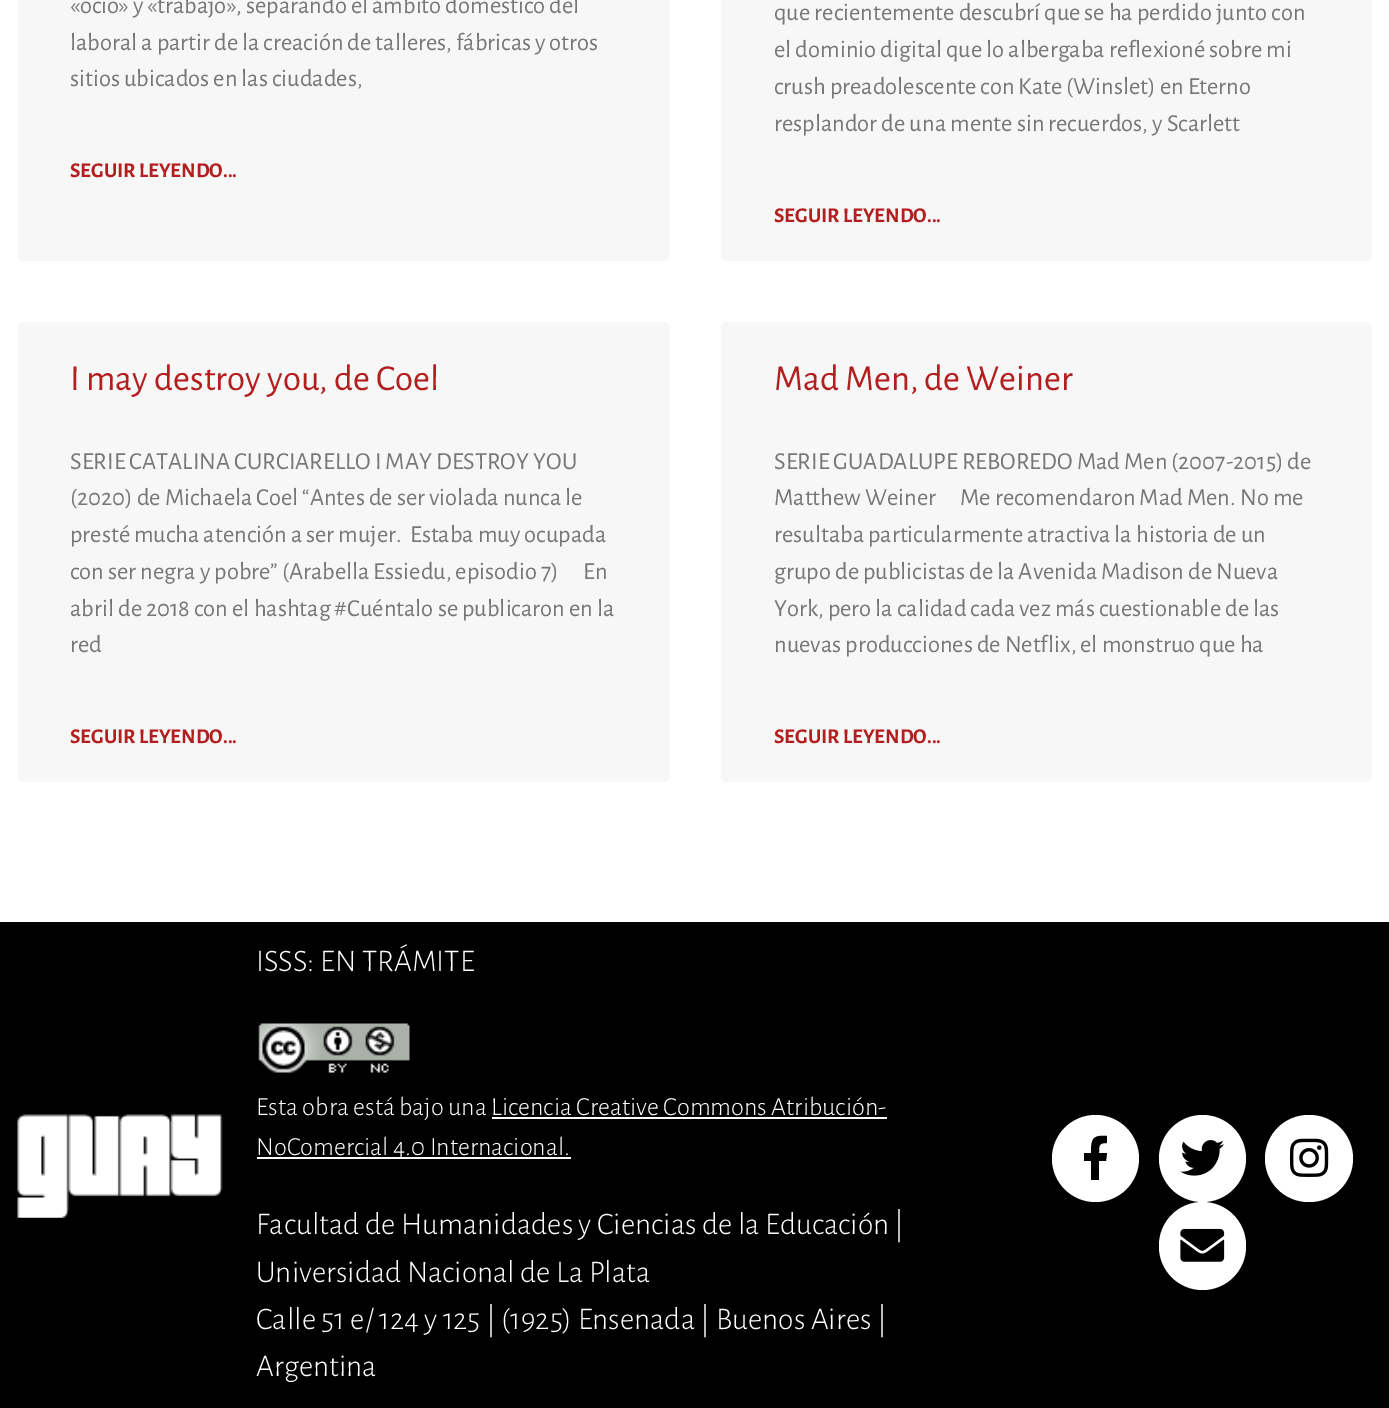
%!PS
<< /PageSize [1389 1408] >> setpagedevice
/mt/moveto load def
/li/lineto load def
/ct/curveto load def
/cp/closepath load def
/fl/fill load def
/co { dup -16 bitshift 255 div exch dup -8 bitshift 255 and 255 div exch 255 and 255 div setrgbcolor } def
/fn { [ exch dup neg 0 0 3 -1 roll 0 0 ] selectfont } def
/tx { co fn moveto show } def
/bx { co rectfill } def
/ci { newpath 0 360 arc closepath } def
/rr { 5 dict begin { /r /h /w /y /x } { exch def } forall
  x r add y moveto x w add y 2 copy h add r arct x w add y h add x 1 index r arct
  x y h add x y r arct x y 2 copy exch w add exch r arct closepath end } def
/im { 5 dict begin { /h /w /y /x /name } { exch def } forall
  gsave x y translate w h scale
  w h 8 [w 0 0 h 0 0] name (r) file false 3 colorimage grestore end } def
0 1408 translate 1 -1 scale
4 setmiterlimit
0 0 1389 1408 16#FFFFFF bx
16#F7F7F7 co
18 -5 651 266 5 rr fl
721 -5 651 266 5 rr fl
18 322 651 460 5 rr fl
721 322 651 460 5 rr fl
0 922 1389 486 16#000000 bx
(media/1.raw) 17 1114 206 104 im
(media/2.raw) 257 1022 153 54 im
492 1117 395 2 16#FFFFFF bx
257 1157 314 2 16#FFFFFF bx
1095.5 1158.5 43.5 ci fl
16#000000 co
1106 1161 mt 1099 1161 li 1099 1180 li 1091 1180 li 1091 1161 li 1084 1161 li 1084 1153 li 1091 1153 li 1091 1138 1093 1135 1107 1136 ct 1107 1143 li 1099 1143 1099 1145 1099 1153 ct 1107 1153 li cp fl
16#FFFFFF co
1202.5 1158.5 43.5 ci fl
(media/3.raw) 1180 1140 44 36 im
1265 1115 88 87 43.5 rr fl
(media/4.raw) 1289 1138 40 39 im
1159 1202 87 88 43.5 rr fl
(media/5.raw) 1180 1228 45 34 im
(«ocio» y «trabajo», separando el ámbito doméstico del) 70 13 /AlegreyaSans-Regular 24.5 16#777777 tx
(laboral a partir de la creación de talleres, fábricas y otros) 70 50 /AlegreyaSans-Regular 24.5 16#777777 tx
(sitios ubicados en las ciudades,) 70 86 /AlegreyaSans-Regular 24.5 16#777777 tx
(SEGUIR LEYENDO...) 70 177 /AlegreyaSans-Bold 21 16#B31E1F tx
(que recientemente descubrí que se ha perdido junto con) 774 20 /AlegreyaSans-Regular 24.5 16#777777 tx
(el dominio digital que lo albergaba reflexioné sobre mi) 774 57 /AlegreyaSans-Regular 24.5 16#777777 tx
(crush preadolescente con Kate \(Winslet\) en Eterno) 774 94 /AlegreyaSans-Regular 24.5 16#777777 tx
(resplandor de una mente sin recuerdos, y Scarlett) 774 131 /AlegreyaSans-Regular 24.5 16#777777 tx
(SEGUIR LEYENDO...) 774 222 /AlegreyaSans-Bold 21 16#B31E1F tx
(I may destroy you, de Coel) 70 390 /AlegreyaSans-Regular 36.75 16#B31E1F tx
(SERIE CATALINA CURCIARELLO I MAY DESTROY YOU) 70 469 /AlegreyaSans-Regular 24.5 16#777777 tx
(\(2020\) de Michaela Coel “Antes de ser violada nunca le) 70 505 /AlegreyaSans-Regular 24.5 16#777777 tx
(presté mucha atención a ser mujer.  Estaba muy ocupada) 70 542 /AlegreyaSans-Regular 24.5 16#777777 tx
(con ser negra y pobre” \(Arabella Essiedu, episodio 7\)      En) 70 579 /AlegreyaSans-Regular 24.5 16#777777 tx
(abril de 2018 con el hashtag #Cuéntalo se publicaron en la) 70 616 /AlegreyaSans-Regular 24.5 16#777777 tx
(red) 70 652 /AlegreyaSans-Regular 24.5 16#777777 tx
(SEGUIR LEYENDO...) 70 743 /AlegreyaSans-Bold 21 16#B31E1F tx
(Mad Men, de Weiner) 774 390 /AlegreyaSans-Regular 36.75 16#B31E1F tx
(SERIE GUADALUPE REBOREDO Mad Men \(2007-2015\) de) 774 469 /AlegreyaSans-Regular 24.5 16#777777 tx
(Matthew Weiner      Me recomendaron Mad Men. No me) 774 505 /AlegreyaSans-Regular 24.5 16#777777 tx
(resultaba particularmente atractiva la historia de un) 774 542 /AlegreyaSans-Regular 24.5 16#777777 tx
(grupo de publicistas de la Avenida Madison de Nueva) 774 579 /AlegreyaSans-Regular 24.5 16#777777 tx
(York, pero la calidad cada vez más cuestionable de las) 774 616 /AlegreyaSans-Regular 24.5 16#777777 tx
(nuevas producciones de Netflix, el monstruo que ha) 774 652 /AlegreyaSans-Regular 24.5 16#777777 tx
(SEGUIR LEYENDO...) 774 743 /AlegreyaSans-Bold 21 16#B31E1F tx
(ISSS: EN TRÁMITE) 256 971 /AlegreyaSans-Light 31.5 16#FFFFFF tx
(Esta obra está bajo una Licencia Creative Commons Atribución-) 256 1115 /AlegreyaSans-Light 26.25 16#FFFFFF tx
(NoComercial 4.0 Internacional.) 256 1155 /AlegreyaSans-Light 26.25 16#FFFFFF tx
(Facultad de Humanidades y Ciencias de la Educación |) 256 1234 /AlegreyaSans-Light 31.5 16#FFFFFF tx
(Universidad Nacional de La Plata) 256 1282 /AlegreyaSans-Light 31.5 16#FFFFFF tx
(Calle 51 e/ 124 y 125 | \(1925\) Ensenada | Buenos Aires |) 256 1329 /AlegreyaSans-Light 31.5 16#FFFFFF tx
(Argentina) 256 1376 /AlegreyaSans-Light 31.5 16#FFFFFF tx
showpage
